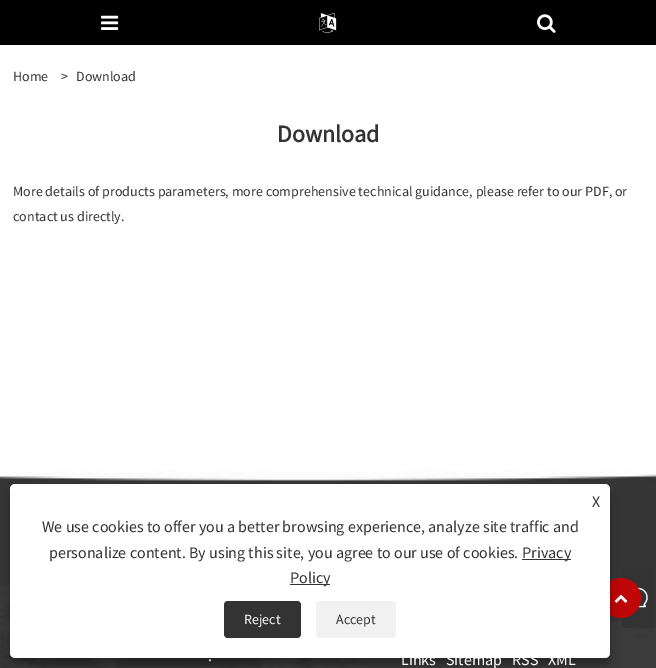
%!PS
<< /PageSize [656 668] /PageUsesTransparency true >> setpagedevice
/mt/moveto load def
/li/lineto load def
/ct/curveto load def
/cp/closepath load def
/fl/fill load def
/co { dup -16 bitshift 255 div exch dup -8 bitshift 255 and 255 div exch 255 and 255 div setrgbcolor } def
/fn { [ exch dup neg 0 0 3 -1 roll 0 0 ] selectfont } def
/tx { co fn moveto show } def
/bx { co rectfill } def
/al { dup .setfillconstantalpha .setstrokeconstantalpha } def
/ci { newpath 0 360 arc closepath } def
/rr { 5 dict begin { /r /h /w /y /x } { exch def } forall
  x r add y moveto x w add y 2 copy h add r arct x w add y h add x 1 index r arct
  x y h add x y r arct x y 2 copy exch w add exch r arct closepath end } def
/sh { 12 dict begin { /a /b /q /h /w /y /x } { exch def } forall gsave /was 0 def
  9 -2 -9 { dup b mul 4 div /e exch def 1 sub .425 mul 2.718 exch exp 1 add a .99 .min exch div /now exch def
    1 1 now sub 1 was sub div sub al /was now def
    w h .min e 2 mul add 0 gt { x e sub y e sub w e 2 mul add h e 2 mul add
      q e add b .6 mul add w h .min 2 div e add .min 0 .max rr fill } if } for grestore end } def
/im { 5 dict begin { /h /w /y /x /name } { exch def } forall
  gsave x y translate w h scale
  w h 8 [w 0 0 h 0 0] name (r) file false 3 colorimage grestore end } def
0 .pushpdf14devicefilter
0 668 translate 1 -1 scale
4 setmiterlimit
0 0 656 668 16#FFFFFF bx
0 0 656 45 16#000000 bx
(media/1.raw) 101 15 18 15 im
(media/2.raw) 319 12 18 21 im
(media/3.raw) 537 14 19 19 im
(media/4.raw) 0 369 656 299 im
16#333333 co
626 568 mt 654 568 li 654 628 li 626 628 li 624 628 622 626 622 624 ct 622 572 li 622 570 624 568 626 568 ct cp fl
(media/5.raw) 637 587 11 21 im
16#C00606 co
621 598 20 ci fl
(media/6.raw) 614 594 14 9 im
16#000000 co
10 490 600 174 5 3 .23 sh
10 494 600 174 5 10 .19 sh
16#FFFFFF co
10 484 600 174 5 rr fl
522 559 49 1 16#333333 bx
290 584 40 1 16#333333 bx
224 601 77 37 4 rr fl
16#F1F1F1 co
316 601 80 37 4 rr fl
(Home) 13 81 /SourceSansPro-Regular 14 16#333333 tx
(>) 61 81 /SourceSansPro-Regular 14 16#333333 tx
(Download) 76 81 /SourceSansPro-Regular 14 16#333333 tx
(Download) 277 142 /SourceSansPro-Bold 24 16#333333 tx
(More details of products parameters, more comprehensive technical guidance, please refer to our PDF, or) 13 196 /SourceSansPro-Regular 14 16#333333 tx
(contact us directly.) 13 221 /SourceSansPro-Regular 14 16#333333 tx
(.) 208 661 /SourceSansPro-Regular 16 16#FFFFFF tx
(Links) 401 665 /SourceSansPro-Regular 16 16#FFFFFF tx
(Sitemap) 446 665 /SourceSansPro-Regular 16 16#FFFFFF tx
(RSS) 512 665 /SourceSansPro-Regular 16 16#FFFFFF tx
(XML) 548 665 /SourceSansPro-Regular 16 16#FFFFFF tx
(X) 592 507 /SourceSansPro-Regular 16 16#333333 tx
(We use cookies to offer you a better browsing experience, analyze site traffic and) 42 532 /SourceSansPro-Regular 16 16#333333 tx
(personalize content. By using this site, you agree to our use of cookies.) 49 558 /SourceSansPro-Regular 16 16#333333 tx
(Privacy) 522 558 /SourceSansPro-Regular 16 16#333333 tx
(Policy) 290 583 /SourceSansPro-Regular 16 16#333333 tx
(Reject) 244 624 /SourceSansPro-Regular 14 16#FFFFFF tx
(Accept) 336 624 /SourceSansPro-Regular 14 16#333333 tx
.poppdf14devicefilter showpage
